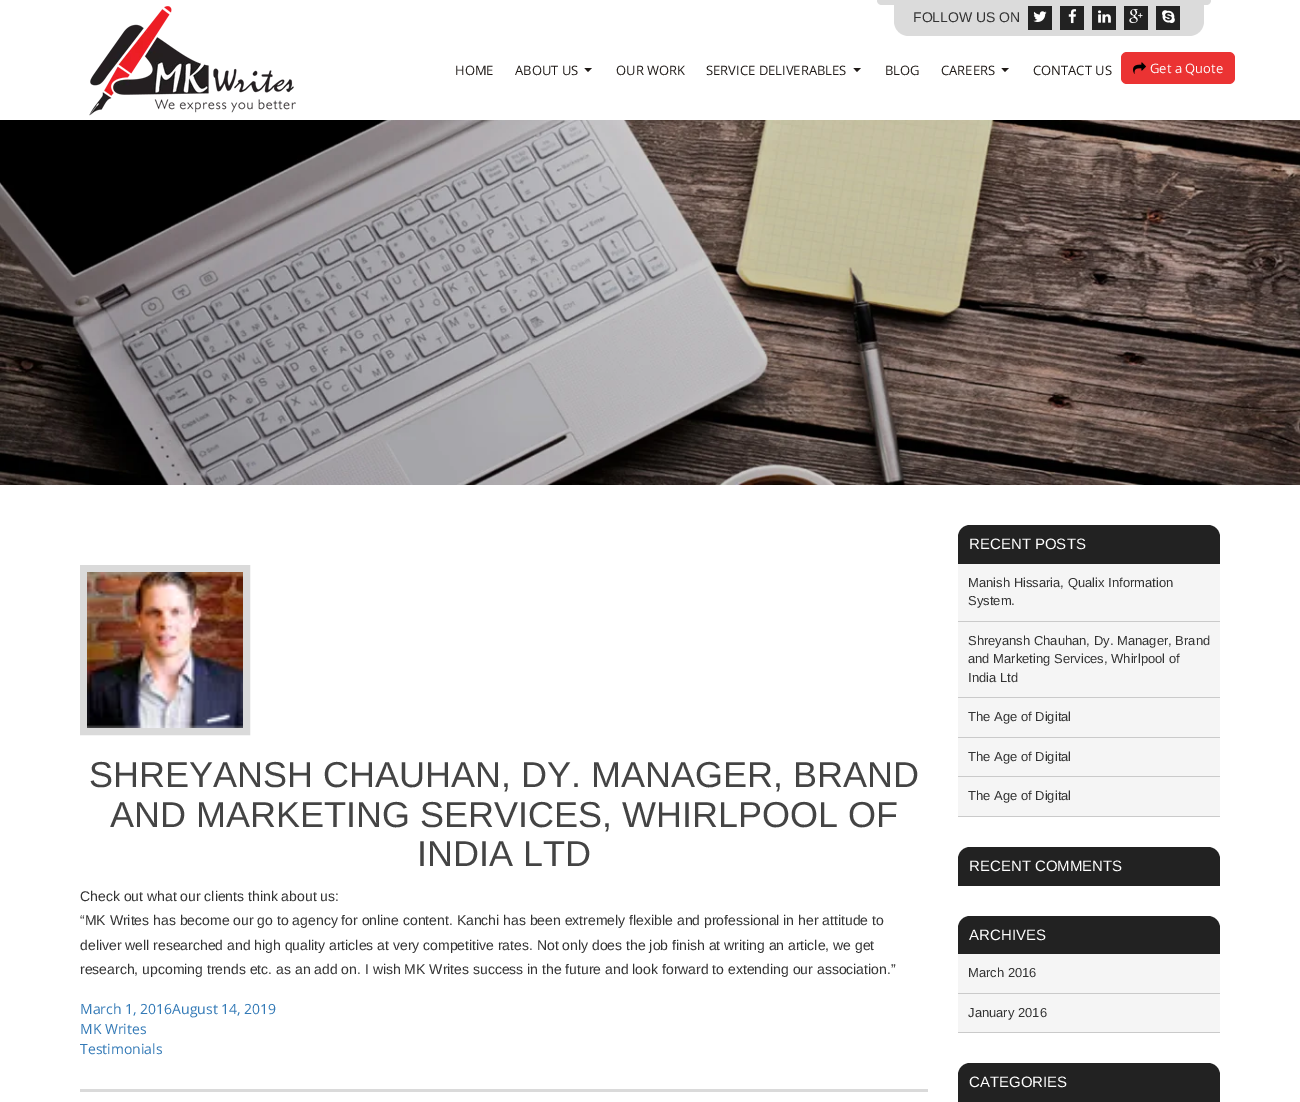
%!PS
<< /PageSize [1300 1102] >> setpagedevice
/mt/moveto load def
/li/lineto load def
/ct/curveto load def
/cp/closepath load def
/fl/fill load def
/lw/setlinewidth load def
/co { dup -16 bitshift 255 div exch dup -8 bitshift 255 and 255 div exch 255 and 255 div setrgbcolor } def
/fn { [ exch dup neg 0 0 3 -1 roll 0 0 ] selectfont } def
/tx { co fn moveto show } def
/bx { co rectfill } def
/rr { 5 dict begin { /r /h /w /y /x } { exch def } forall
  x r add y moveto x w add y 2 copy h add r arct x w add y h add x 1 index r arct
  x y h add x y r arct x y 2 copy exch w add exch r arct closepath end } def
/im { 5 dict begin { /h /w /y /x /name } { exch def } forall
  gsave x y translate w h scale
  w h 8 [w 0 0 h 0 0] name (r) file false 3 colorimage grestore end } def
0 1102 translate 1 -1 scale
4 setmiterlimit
0 0 1300 1102 16#FFFFFF bx
16#DBDBDB co
877 0 mt 1211 0 li 1211 3 1209 5 1206 5 ct 882 5 li 879 5 877 3 877 0 ct cp fl
(media/1.raw) 89 6 207 110 im
894 0 mt 1204 0 li 1204 21 li 1204 29.5 1197.5 36 1189 36 ct 909 36 li 900.5 36 894 29.5 894 21 ct cp fl
1028 6 24 24 16#222222 bx
(media/2.raw) 1033 11 14 11 im
1060 6 24 24 16#222222 bx
(media/3.raw) 1068 9 9 15 im
1092 6 24 24 16#222222 bx
(media/4.raw) 1098 10 13 13 im
1124 6 24 24 16#222222 bx
(media/5.raw) 1129 9 14 15 im
1156 6 24 24 16#222222 bx
(media/6.raw) 1162 10 13 14 im
16#1F1A17 co
584.5 68 mt 592 68 li 588 72 li cp fl
853.5 68 mt 861 68 li 857 72 li cp fl
1001.5 68 mt 1009 68 li 1005 72 li cp fl
16#EB3333 co
1121 52 114 32 6 rr fl
(media/7.raw) 1133 62 13 12 im
(media/8.raw) 0 120 1300 365 im
16#DADADA co
7 lw
83.5 568.5 163 163 rectstroke
(media/9.raw) 87 572 156 156 im
80 1089 848 3 16#DADADA bx
16#222222 co
970 525 mt 1208 525 li 1214.5 525 1220 530.5 1220 537 ct 1220 564 li 958 564 li 958 537 li 958 530.5 963.5 525 970 525 ct cp fl
958 621 262 1 16#CACACA bx
958 564 262 57 16#F5F5F5 bx
958 697 262 1 16#CACACA bx
958 622 262 75 16#F5F5F5 bx
958 737 262 1 16#CACACA bx
958 698 262 39 16#F5F5F5 bx
958 776 262 1 16#CACACA bx
958 738 262 38 16#F5F5F5 bx
958 816 262 1 16#CACACA bx
958 777 262 39 16#F5F5F5 bx
16#222222 co
970 847 mt 1208 847 li 1214.5 847 1220 852.5 1220 859 ct 1220 886 li 958 886 li 958 859 li 958 852.5 963.5 847 970 847 ct cp fl
970 916 mt 1208 916 li 1214.5 916 1220 921.5 1220 928 ct 1220 954 li 958 954 li 958 928 li 958 921.5 963.5 916 970 916 ct cp fl
958 993 262 1 16#CACACA bx
958 954 262 39 16#F5F5F5 bx
958 1032 262 1 16#CACACA bx
958 994 262 38 16#F5F5F5 bx
16#222222 co
970 1063 mt 1208 1063 li 1214.5 1063 1220 1068.5 1220 1075 ct 1220 1102 li 958 1102 li 958 1075 li 958 1068.5 963.5 1063 970 1063 ct cp fl
(FOLLOW US ON) 913 22 /LiberationSans-Regular 14 16#333333 tx
(HOME) 455 75 /OpenSans-Regular 13 16#1F1A17 tx
(ABOUT US) 515 75 /OpenSans-Regular 13 16#1F1A17 tx
(OUR WORK) 616 75 /OpenSans-Regular 13 16#1F1A17 tx
(SERVICE DELIVERABLES) 706 75 /OpenSans-Regular 13 16#1F1A17 tx
(BLOG) 885 75 /OpenSans-Regular 13 16#1F1A17 tx
(CAREERS) 941 75 /OpenSans-Regular 13 16#1F1A17 tx
(CONTACT US) 1033 75 /OpenSans-Regular 13 16#1F1A17 tx
(Get a Quote) 1150 73 /OpenSans-Regular 13 16#FFFFFF tx
(SHREYANSH CHAUHAN, DY. MANAGER, BRAND) 89 787 /LiberationSans-Regular 36 16#444444 tx
(AND MARKETING SERVICES, WHIRLPOOL OF) 110 827 /LiberationSans-Regular 36 16#444444 tx
(INDIA LTD) 417 866 /LiberationSans-Regular 36 16#444444 tx
(Check out what our clients think about us:) 80 901 /LiberationSans-Regular 14 16#333333 tx
(“MK Writes has become our go to agency for online content. Kanchi has been extremely flexible and professional in her attitude to) 80 925 /LiberationSans-Regular 14 16#333333 tx
(deliver well researched and high quality articles at very competitive rates. Not only does the job finish at writing an article, we get) 80 950 /LiberationSans-Regular 14 16#333333 tx
(research, upcoming trends etc. as an add on. I wish MK Writes success in the future and look forward to extending our association.”) 80 974 /LiberationSans-Regular 14 16#333333 tx
(March 1, 2016August 14, 2019) 80 1014 /OpenSans-Regular 14 16#337AB7 tx
(MK Writes) 80 1034 /OpenSans-Regular 14 16#337AB7 tx
(Testimonials) 80 1054 /OpenSans-Regular 14 16#337AB7 tx
(RECENT POSTS) 969 549 /LiberationSans-Regular 15 16#FFFFFF tx
(Manish Hissaria, Qualix Information) 968 587 /LiberationSans-Regular 13 16#333333 tx
(System.) 968 605 /LiberationSans-Regular 13 16#333333 tx
(Shreyansh Chauhan, Dy. Manager, Brand) 968 645 /LiberationSans-Regular 13 16#333333 tx
(and Marketing Services, Whirlpool of) 968 663 /LiberationSans-Regular 13 16#333333 tx
(India Ltd) 968 682 /LiberationSans-Regular 13 16#333333 tx
(The Age of Digital) 968 721 /LiberationSans-Regular 13 16#333333 tx
(The Age of Digital) 968 761 /LiberationSans-Regular 13 16#333333 tx
(The Age of Digital) 968 800 /LiberationSans-Regular 13 16#333333 tx
(RECENT COMMENTS) 969 871 /LiberationSans-Regular 15 16#FFFFFF tx
(ARCHIVES) 969 940 /LiberationSans-Regular 15 16#FFFFFF tx
(March 2016) 968 977 /LiberationSans-Regular 13 16#333333 tx
(January 2016) 968 1017 /LiberationSans-Regular 13 16#333333 tx
(CATEGORIES) 969 1087 /LiberationSans-Regular 15 16#FFFFFF tx
showpage
